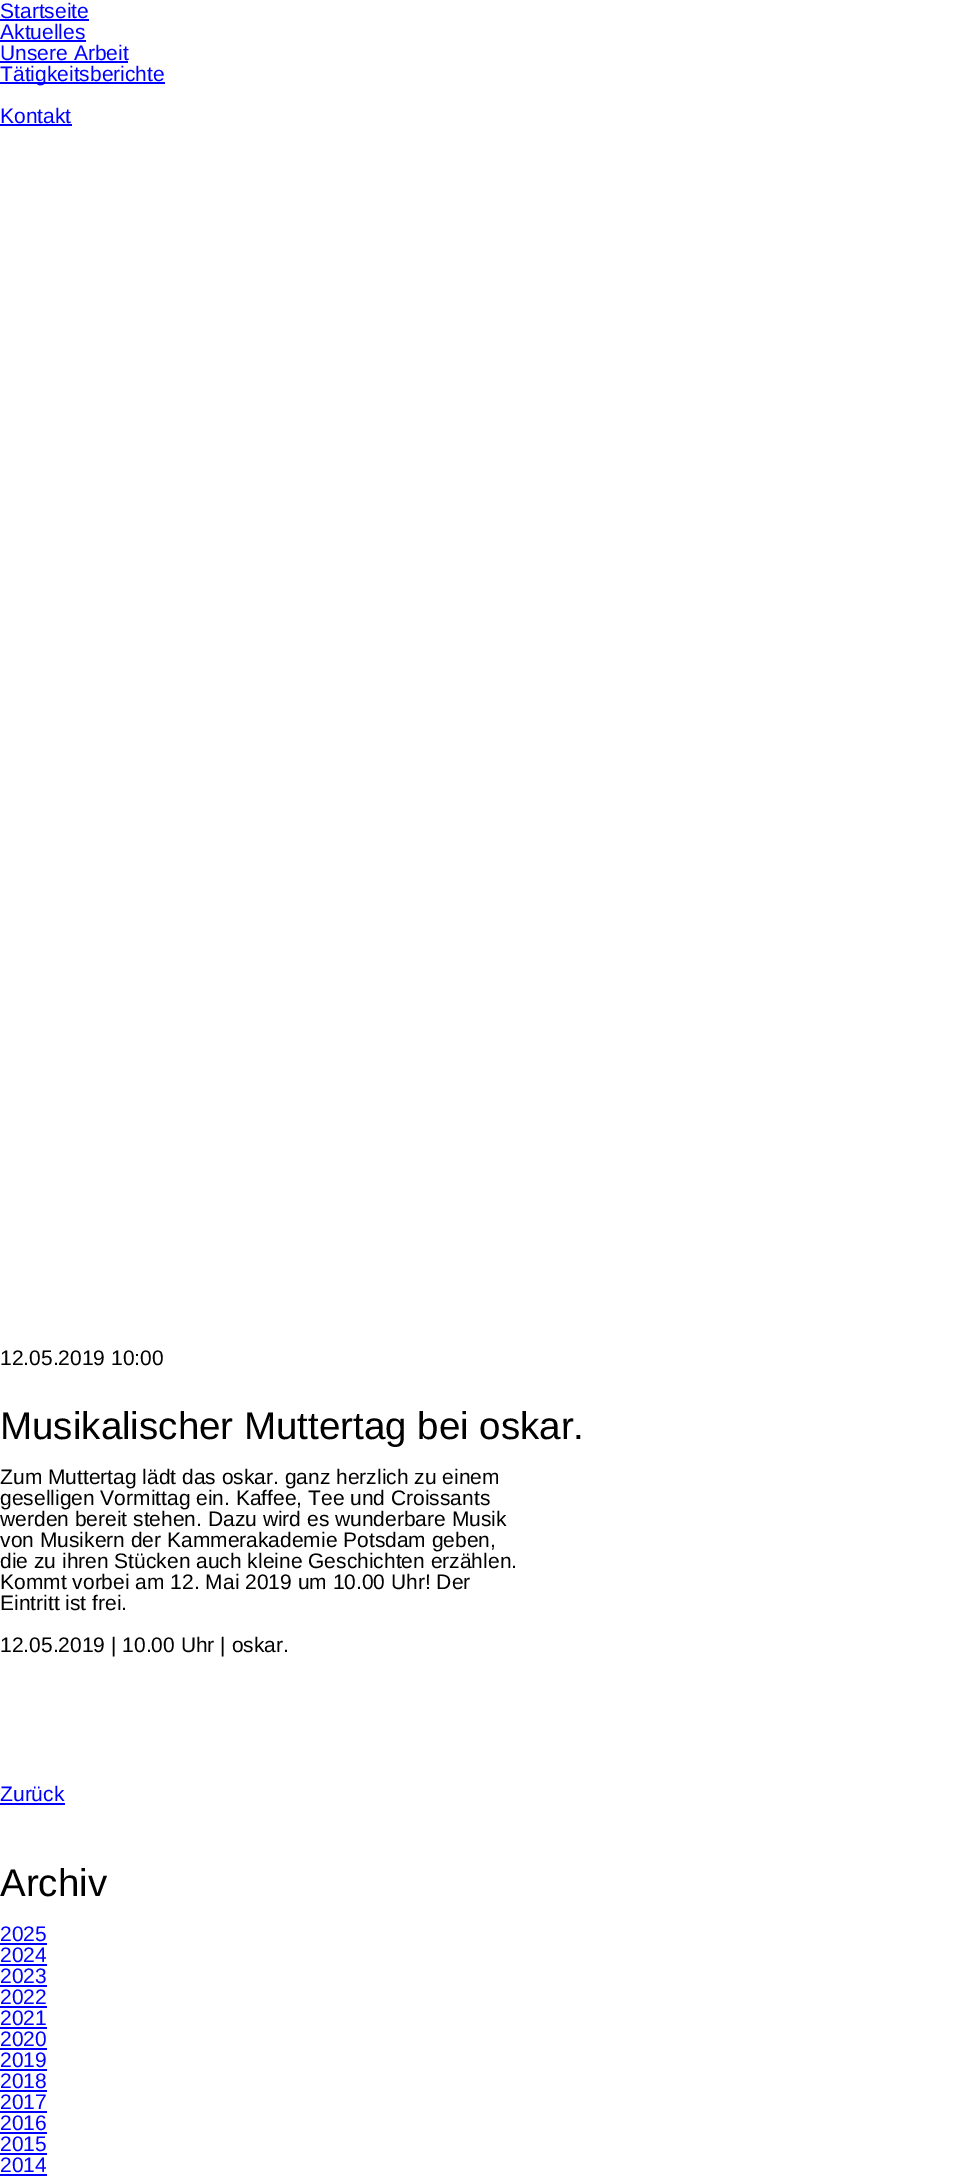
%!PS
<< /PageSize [960 2177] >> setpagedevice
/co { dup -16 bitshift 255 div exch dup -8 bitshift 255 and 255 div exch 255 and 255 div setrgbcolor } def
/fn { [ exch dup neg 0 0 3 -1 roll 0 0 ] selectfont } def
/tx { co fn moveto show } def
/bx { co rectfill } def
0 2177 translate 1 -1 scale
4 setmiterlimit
0 0 960 2177 16#FFFFFF bx
0 19 89 2 16#0000FF bx
0 40 86 2 16#0000FF bx
0 61 128 2 16#0000FF bx
0 82 165 2 16#0000FF bx
0 124 72 2 16#0000FF bx
0 1803 65 2 16#0000FF bx
0 1943 47 2 16#0000FF bx
0 1964 47 2 16#0000FF bx
0 1985 47 2 16#0000FF bx
0 2006 47 2 16#0000FF bx
0 2027 47 2 16#0000FF bx
0 2048 47 2 16#0000FF bx
0 2069 47 2 16#0000FF bx
0 2090 47 2 16#0000FF bx
0 2111 47 2 16#0000FF bx
0 2132 47 2 16#0000FF bx
0 2153 47 2 16#0000FF bx
0 2174 47 2 16#0000FF bx
(Startseite) 0 18 /LiberationSans-Regular 21 16#0000FF tx
(Aktuelles) 0 39 /LiberationSans-Regular 21 16#0000FF tx
(Unsere Arbeit) 0 60 /LiberationSans-Regular 21 16#0000FF tx
(Tätigkeitsberichte) 0 81 /LiberationSans-Regular 21 16#0000FF tx
(Kontakt) 0 123 /LiberationSans-Regular 21 16#0000FF tx
(12.05.2019 10:00) 0 1365 /LiberationSans-Regular 21 16#000000 tx
(Musikalischer Muttertag bei oskar.) 0 1439 /LiberationSans-Regular 38.5 16#000000 tx
(Zum Muttertag lädt das oskar. ganz herzlich zu einem) 0 1484 /LiberationSans-Regular 21 16#000000 tx
(geselligen Vormittag ein. Kaffee, Tee und Croissants) 0 1505 /LiberationSans-Regular 21 16#000000 tx
(werden bereit stehen. Dazu wird es wunderbare Musik) 0 1526 /LiberationSans-Regular 21 16#000000 tx
(von Musikern der Kammerakademie Potsdam geben,) 0 1547 /LiberationSans-Regular 21 16#000000 tx
(die zu ihren Stücken auch kleine Geschichten erzählen.) 0 1568 /LiberationSans-Regular 21 16#000000 tx
(Kommt vorbei am 12. Mai 2019 um 10.00 Uhr! Der) 0 1589 /LiberationSans-Regular 21 16#000000 tx
(Eintritt ist frei.) 0 1610 /LiberationSans-Regular 21 16#000000 tx
(12.05.2019 | 10.00 Uhr | oskar.) 0 1652 /LiberationSans-Regular 21 16#000000 tx
(Zurück) 0 1801 /LiberationSans-Regular 21 16#0000FF tx
(Archiv) 0 1896 /LiberationSans-Regular 38.5 16#000000 tx
(2025) 0 1941 /LiberationSans-Regular 21 16#0000FF tx
(2024) 0 1962 /LiberationSans-Regular 21 16#0000FF tx
(2023) 0 1983 /LiberationSans-Regular 21 16#0000FF tx
(2022) 0 2004 /LiberationSans-Regular 21 16#0000FF tx
(2021) 0 2025 /LiberationSans-Regular 21 16#0000FF tx
(2020) 0 2046 /LiberationSans-Regular 21 16#0000FF tx
(2019) 0 2067 /LiberationSans-Regular 21 16#0000FF tx
(2018) 0 2088 /LiberationSans-Regular 21 16#0000FF tx
(2017) 0 2109 /LiberationSans-Regular 21 16#0000FF tx
(2016) 0 2130 /LiberationSans-Regular 21 16#0000FF tx
(2015) 0 2151 /LiberationSans-Regular 21 16#0000FF tx
(2014) 0 2172 /LiberationSans-Regular 21 16#0000FF tx
showpage
